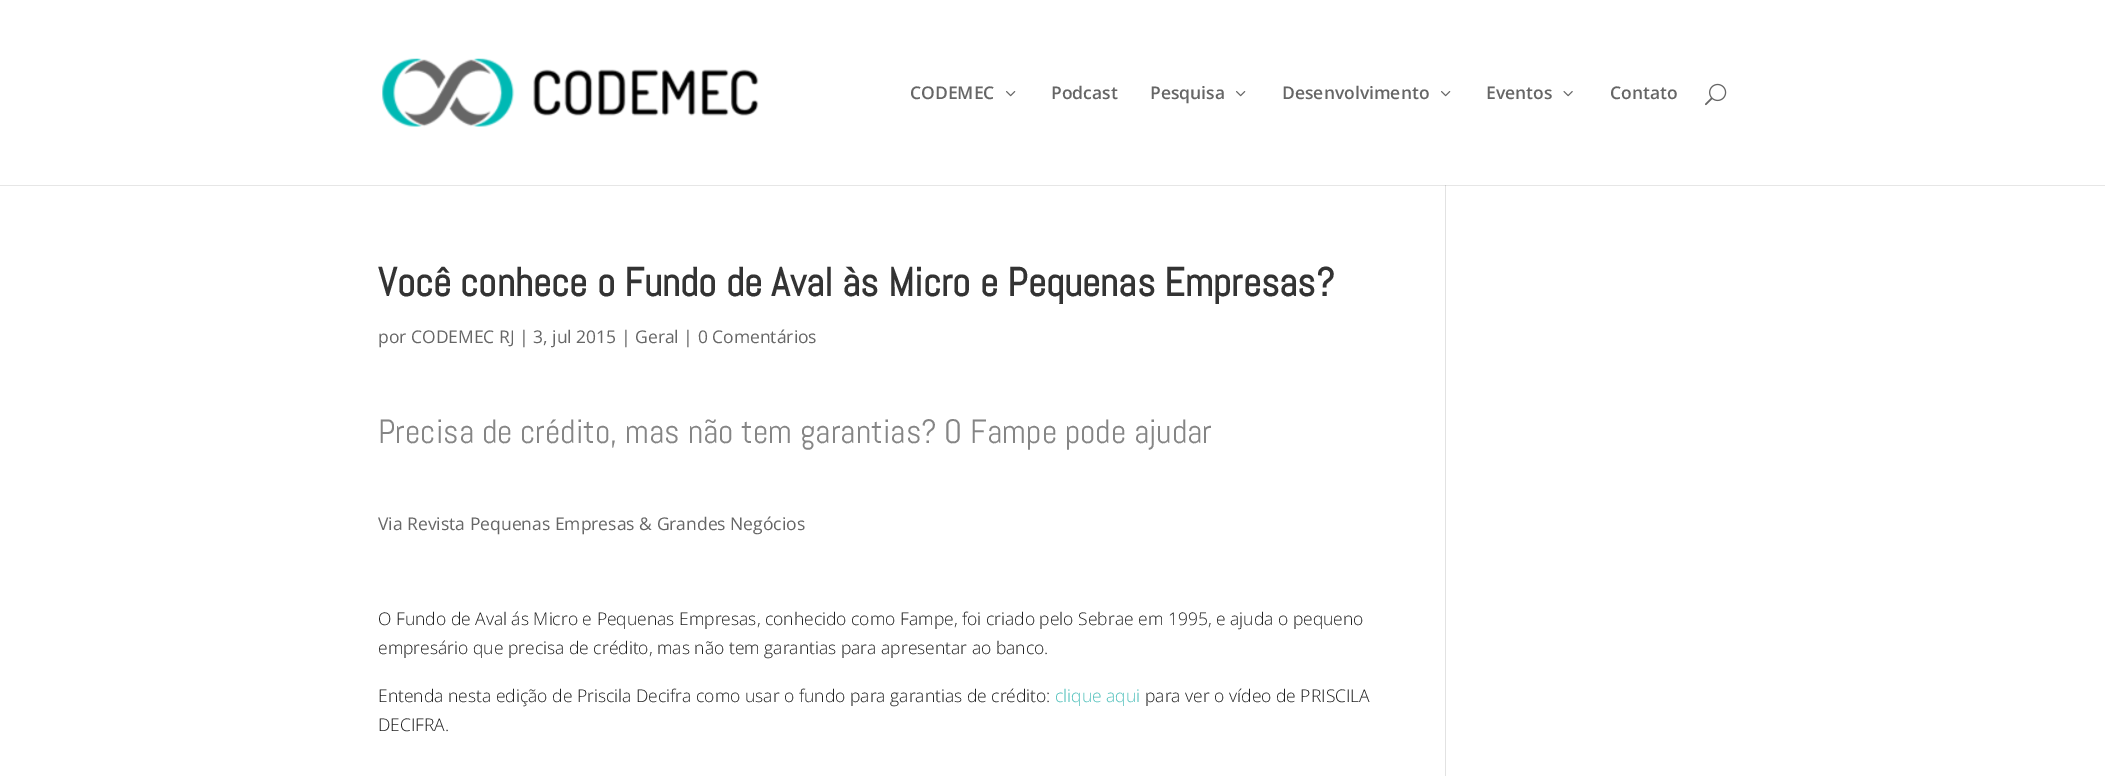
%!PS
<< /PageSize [2105 776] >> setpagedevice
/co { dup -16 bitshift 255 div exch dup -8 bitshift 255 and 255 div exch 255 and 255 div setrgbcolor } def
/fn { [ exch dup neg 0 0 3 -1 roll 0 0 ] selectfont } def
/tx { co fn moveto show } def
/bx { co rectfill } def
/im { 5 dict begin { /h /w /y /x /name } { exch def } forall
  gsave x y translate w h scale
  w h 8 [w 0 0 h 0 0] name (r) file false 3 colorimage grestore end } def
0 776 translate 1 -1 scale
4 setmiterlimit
0 0 2105 776 16#FFFFFF bx
(media/1.raw) 382 58 377 69 im
(media/2.raw) 1006 91 10 6 im
(media/2.raw) 1236 91 10 6 im
(media/2.raw) 1441 91 10 6 im
(media/3.raw) 1563 91 10 6 im
(media/4.raw) 1705 83 22 23 im
0 185 2105 1 16#E6E6E6 bx
1445 185 1 591 16#E2E2E2 bx
1445 185 1 1 16#CBCBCB bx
(CODEMEC) 910 99 /OpenSans-SemiBold 17.5 16#666666 tx
(Podcast) 1051 99 /OpenSans-SemiBold 17.5 16#666666 tx
(Pesquisa) 1150 99 /OpenSans-SemiBold 17.5 16#666666 tx
(Desenvolvimento) 1282 99 /OpenSans-SemiBold 17.5 16#666666 tx
(Eventos) 1486 99 /OpenSans-SemiBold 17.5 16#666666 tx
(Contato) 1610 99 /OpenSans-SemiBold 17.5 16#666666 tx
(Você conhece o Fundo de Aval às Micro e Pequenas Empresas?) 378 296 /Abel-Bold 40 16#333333 tx
(por CODEMEC RJ | 3, jul 2015 | Geral | 0 Comentários) 378 343 /OpenSans-Regular 17.5 16#666666 tx
(Precisa de crédito, mas não tem garantias? O Fampe pode ajudar) 378 443 /Abel-Regular 33.75 16#858585 tx
(Via Revista Pequenas Empresas & Grandes Negócios) 378 530 /OpenSans-Regular 17.5 16#666666 tx
(O Fundo de Aval ás Micro e Pequenas Empresas, conhecido como Fampe, foi criado pelo Sebrae em 1995, e ajuda o pequeno) 378 625 /OpenSans-Light 17.5 16#202020 tx
(empresário que precisa de crédito, mas não tem garantias para apresentar ao banco.) 378 654 /OpenSans-Light 17.5 16#202020 tx
(Entenda nesta edição de Priscila Decifra como usar o fundo para garantias de crédito:) 378 702 /OpenSans-Light 17.5 16#202020 tx
(clique aqui) 1055 702 /OpenSans-Light 17.5 16#4FC0BB tx
(para ver o vídeo de PRISCILA) 1145 702 /OpenSans-Light 17.5 16#202020 tx
(DECIFRA.) 378 731 /OpenSans-Light 17.5 16#202020 tx
showpage
